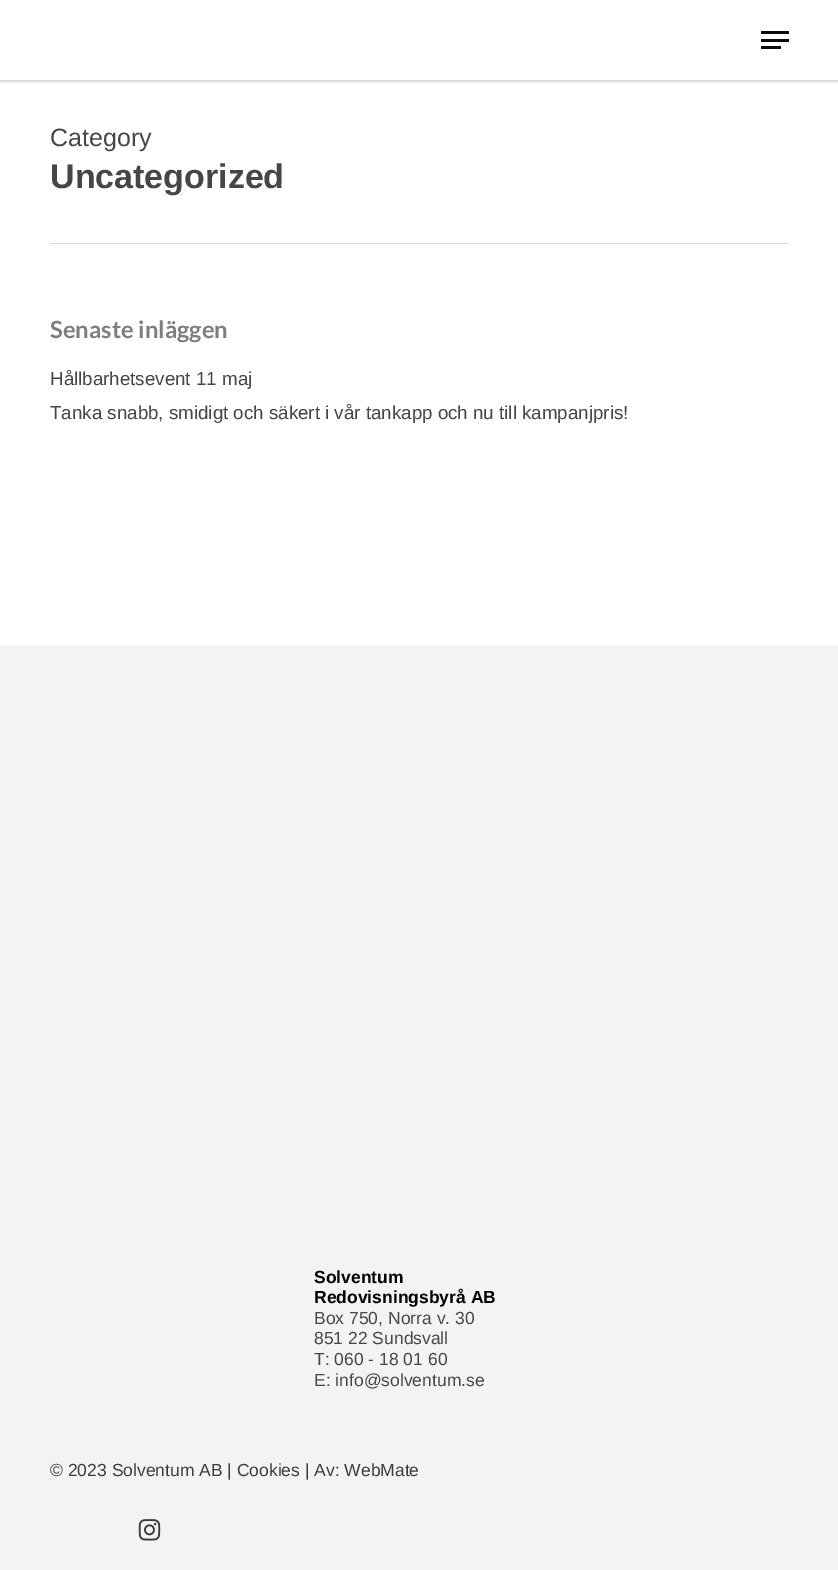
%!PS
<< /PageSize [838 1570] /PageUsesTransparency true >> setpagedevice
/gs/gsave load def
/gr/grestore load def
/co { dup -16 bitshift 255 div exch dup -8 bitshift 255 and 255 div exch 255 and 255 div setrgbcolor } def
/fn { [ exch dup neg 0 0 3 -1 roll 0 0 ] selectfont } def
/tx { co fn moveto show } def
/bx { co rectfill } def
/al { dup .setfillconstantalpha .setstrokeconstantalpha } def
/rr { 5 dict begin { /r /h /w /y /x } { exch def } forall
  x r add y moveto x w add y 2 copy h add r arct x w add y h add x 1 index r arct
  x y h add x y r arct x y 2 copy exch w add exch r arct closepath end } def
/sh { 12 dict begin { /a /b /q /h /w /y /x } { exch def } forall gsave /was 0 def
  9 -2 -9 { dup b mul 4 div /e exch def 1 sub .425 mul 2.718 exch exp 1 add a .99 .min exch div /now exch def
    1 1 now sub 1 was sub div sub al /was now def
    w h .min e 2 mul add 0 gt { x e sub y e sub w e 2 mul add h e 2 mul add
      q e add b .6 mul add w h .min 2 div e add .min 0 .max rr fill } if } for grestore end } def
/im { 5 dict begin { /h /w /y /x /name } { exch def } forall
  gsave x y translate w h scale
  w h 8 [w 0 0 h 0 0] name (r) file false 3 colorimage grestore end } def
0 .pushpdf14devicefilter
0 1570 translate 1 -1 scale
4 setmiterlimit
0 0 838 1570 16#FFFFFF bx
gs
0 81 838 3 rectclip
16#000000 co
0 0 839 81 0 2 .22 sh
gr
0 80 838 1 16#D5D7DA bx
761 31 28 3 16#0A0A0A bx
761 46 20 3 16#0A0A0A bx
761 39 28 3 16#0A0A0A bx
50 243 739 1 16#D9D9D9 bx
0 645 838 925 16#F3F3F3 bx
(media/1.raw) 138 1519 23 22 im
(Category) 50 146 /LiberationSans-Regular 25 16#464646 tx
(Uncategorized) 50 188 /LiberationSans-Bold 34 16#464646 tx
(Senaste inläggen) 50 338 /Lato-Bold 23.75 16#7E7E7E tx
(Hållbarhetsevent 11 maj) 50 385 /LiberationSans-Regular 18.75 16#464646 tx
(Tanka snabb, smidigt och säkert i vår tankapp och nu till kampanjpris!) 50 419 /LiberationSans-Regular 18.75 16#464646 tx
(Solventum) 314 1283 /LiberationSans-Bold 17.5 16#000000 tx
(Redovisningsbyrå AB) 314 1303 /LiberationSans-Bold 17.5 16#000000 tx
(Box 750, Norra v. 30) 314 1324 /LiberationSans-Regular 17.5 16#464646 tx
(851 22 Sundsvall) 314 1344 /LiberationSans-Regular 17.5 16#464646 tx
(T: 060 - 18 01 60) 314 1365 /LiberationSans-Regular 17.5 16#464646 tx
(E: info@solventum.se) 314 1386 /LiberationSans-Regular 17.5 16#464646 tx
(© 2023 Solventum AB | Cookies | Av: WebMate) 50 1476 /LiberationSans-Regular 17.5 16#3C3C3C tx
.poppdf14devicefilter showpage
